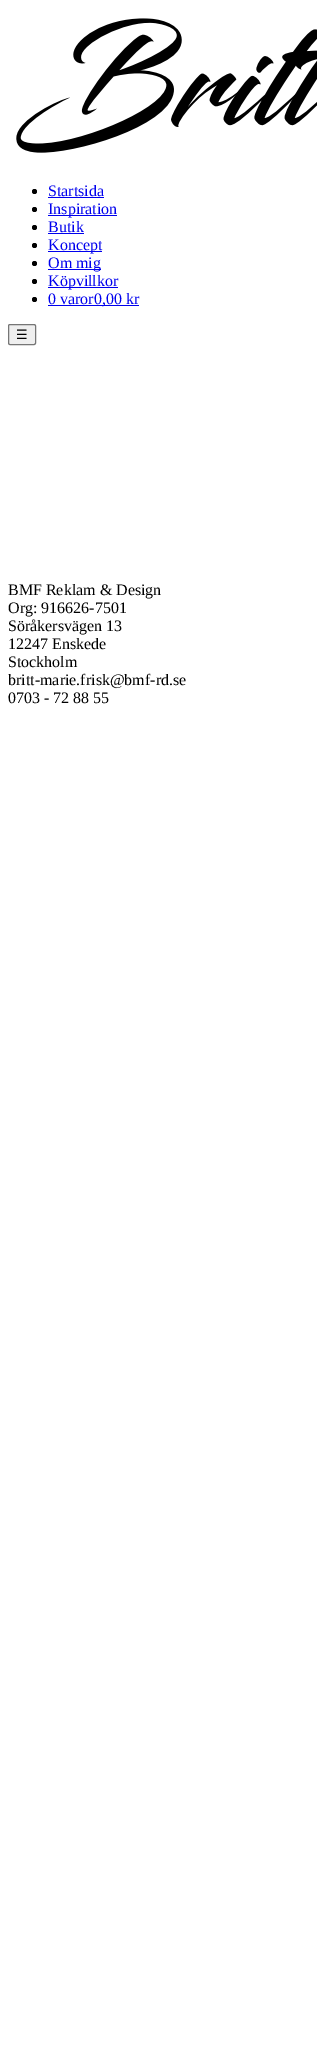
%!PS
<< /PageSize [317 2060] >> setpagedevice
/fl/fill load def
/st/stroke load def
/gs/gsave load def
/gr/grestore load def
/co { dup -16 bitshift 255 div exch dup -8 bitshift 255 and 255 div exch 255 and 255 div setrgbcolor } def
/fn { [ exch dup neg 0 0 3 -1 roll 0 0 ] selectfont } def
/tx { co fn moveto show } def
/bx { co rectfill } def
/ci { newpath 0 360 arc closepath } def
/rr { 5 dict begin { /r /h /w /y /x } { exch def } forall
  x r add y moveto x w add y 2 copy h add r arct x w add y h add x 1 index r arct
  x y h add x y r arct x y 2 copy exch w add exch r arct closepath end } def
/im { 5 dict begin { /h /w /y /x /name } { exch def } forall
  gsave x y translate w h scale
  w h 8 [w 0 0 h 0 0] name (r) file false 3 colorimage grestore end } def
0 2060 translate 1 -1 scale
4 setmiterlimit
0 0 317 2060 16#FFFFFF bx
(media/1.raw) 16 18 301 135 im
16#000000 co
34.5 191.5 2.5 ci fl
48 197 56 1 16#0000EE bx
16#000000 co
34.5 209.5 2.5 ci fl
48 215 69 1 16#0000EE bx
16#000000 co
34.5 227.5 2.5 ci fl
48 233 36 1 16#0000EE bx
16#000000 co
34.5 245.5 2.5 ci fl
48 251 54 1 16#0000EE bx
16#000000 co
34.5 263.5 2.5 ci fl
48 269 53 1 16#0000EE bx
16#000000 co
34.5 281.5 2.5 ci fl
48 287 70 1 16#0000EE bx
16#000000 co
34.5 299.5 2.5 ci fl
48 305 91 1 16#0000EE bx
16#EFEFEF co
8.5 324.5 27 20 1.5 rr gs fl gr
16#767676 co
st
(Startsida) 48 196 /LiberationSerif-Regular 16 16#0000EE tx
(Inspiration) 48 214 /LiberationSerif-Regular 16 16#0000EE tx
(Butik) 48 232 /LiberationSerif-Regular 16 16#0000EE tx
(Koncept) 48 250 /LiberationSerif-Regular 16 16#0000EE tx
(Om mig) 48 268 /LiberationSerif-Regular 16 16#0000EE tx
(Köpvillkor) 48 286 /LiberationSerif-Regular 16 16#0000EE tx
(0 varor0,00 kr) 48 304 /LiberationSerif-Regular 16 16#0000EE tx
(☰) 16 339 /DejaVuSans-Regular 13 16#000000 tx
(BMF Reklam & Design) 8 595 /LiberationSerif-Regular 16 16#000000 tx
(Org: 916626-7501) 8 613 /LiberationSerif-Regular 16 16#000000 tx
(Söråkersvägen 13) 8 631 /LiberationSerif-Regular 16 16#000000 tx
(12247 Enskede) 8 649 /LiberationSerif-Regular 16 16#000000 tx
(Stockholm) 8 667 /LiberationSerif-Regular 16 16#000000 tx
(britt-marie.frisk@bmf-rd.se) 8 685 /LiberationSerif-Regular 16 16#000000 tx
(0703 - 72 88 55) 8 703 /LiberationSerif-Regular 16 16#000000 tx
showpage
